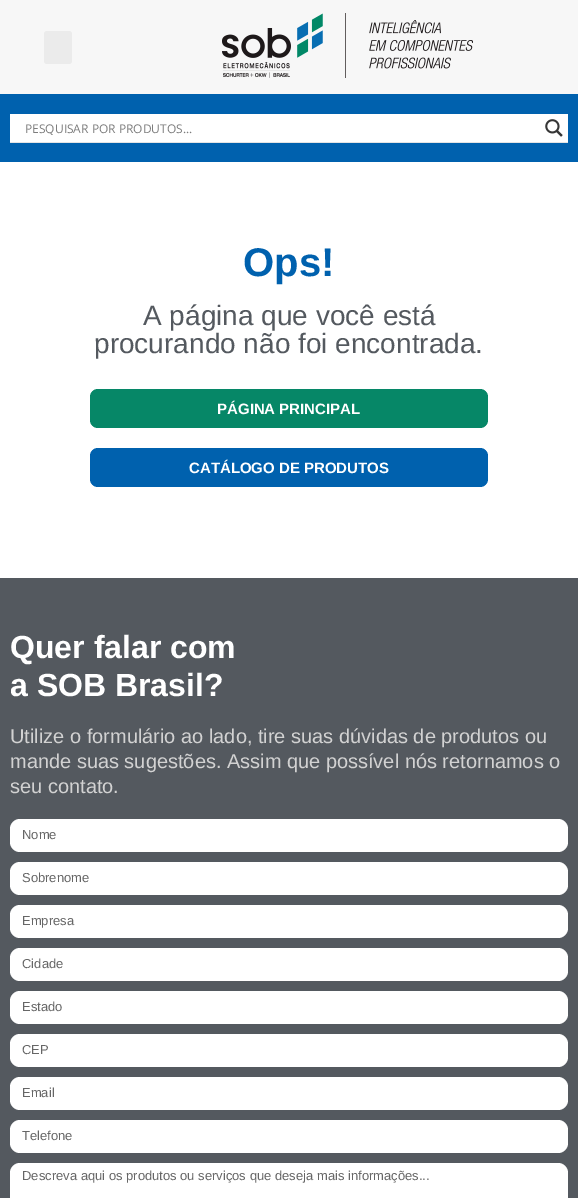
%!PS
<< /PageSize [578 1198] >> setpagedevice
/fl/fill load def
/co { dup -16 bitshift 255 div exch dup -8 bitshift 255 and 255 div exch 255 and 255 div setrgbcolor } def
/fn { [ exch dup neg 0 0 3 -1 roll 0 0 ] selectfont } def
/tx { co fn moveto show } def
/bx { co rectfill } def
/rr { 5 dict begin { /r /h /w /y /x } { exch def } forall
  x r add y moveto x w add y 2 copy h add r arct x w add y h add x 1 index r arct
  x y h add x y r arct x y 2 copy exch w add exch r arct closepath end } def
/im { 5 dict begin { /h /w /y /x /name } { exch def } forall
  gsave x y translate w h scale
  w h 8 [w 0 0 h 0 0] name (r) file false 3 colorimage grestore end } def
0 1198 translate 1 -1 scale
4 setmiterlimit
0 0 578 1198 16#FFFFFF bx
0 0 578 94 16#F7F7F7 bx
16#EBEBEB co
44 31 28 33 3 rr fl
(media/1.raw) 222 13 251 65 im
0 94 578 68 16#0061AE bx
10 142 558 1 16#E4E4E4 bx
10 114 558 28 16#FFFFFF bx
(media/2.raw) 545 119 18 18 im
16#068767 co
90 389 398 39 8 rr fl
16#0061AE co
90 448 398 39 8 rr fl
0 578 578 620 16#54595F bx
16#FFFFFF co
10 819 558 33 10 rr fl
10 862 558 33 10 rr fl
10 905 558 33 10 rr fl
10 948 558 33 10 rr fl
10 991 558 33 10 rr fl
10 1034 558 33 10 rr fl
10 1077 558 33 10 rr fl
10 1120 558 33 10 rr fl
10 1163 558 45 10 rr fl
(PESQUISAR POR PRODUTOS...) 25 133 /OpenSans-Regular 12 16#7D7D7D tx
(Ops!) 243 276 /LiberationSans-Bold 40 16#0061AE tx
(A página que você está) 143 325 /LiberationSans-Regular 28 16#54595F tx
(procurando não foi encontrada.) 94 353 /LiberationSans-Regular 28 16#54595F tx
(PÁGINA PRINCIPAL) 217 414 /LiberationSans-Bold 15 16#FFFFFF tx
(CATÁLOGO DE PRODUTOS) 189 473 /LiberationSans-Bold 15 16#FFFFFF tx
(Quer falar com) 10 658 /LiberationSans-Bold 32 16#FFFFFF tx
(a SOB Brasil?) 10 696 /LiberationSans-Bold 32 16#FFFFFF tx
(Utilize o formulário ao lado, tire suas dúvidas de produtos ou) 10 743 /LiberationSans-Regular 20 16#D2D2D2 tx
(mande suas sugestões. Assim que possível nós retornamos o) 10 768 /LiberationSans-Regular 20 16#D2D2D2 tx
(seu contato.) 10 793 /LiberationSans-Regular 20 16#D2D2D2 tx
(Nome) 22 839 /LiberationSans-Regular 13 16#666666 tx
(Sobrenome) 22 882 /LiberationSans-Regular 13 16#666666 tx
(Empresa) 22 925 /LiberationSans-Regular 13 16#666666 tx
(Cidade) 22 968 /LiberationSans-Regular 13 16#666666 tx
(Estado) 22 1011 /LiberationSans-Regular 13 16#666666 tx
(CEP) 22 1054 /LiberationSans-Regular 13 16#666666 tx
(Email) 22 1097 /LiberationSans-Regular 13 16#666666 tx
(Telefone) 22 1140 /LiberationSans-Regular 13 16#666666 tx
(Descreva aqui os produtos ou serviços que deseja mais informações...) 22 1180 /LiberationSans-Regular 13 16#666666 tx
showpage
